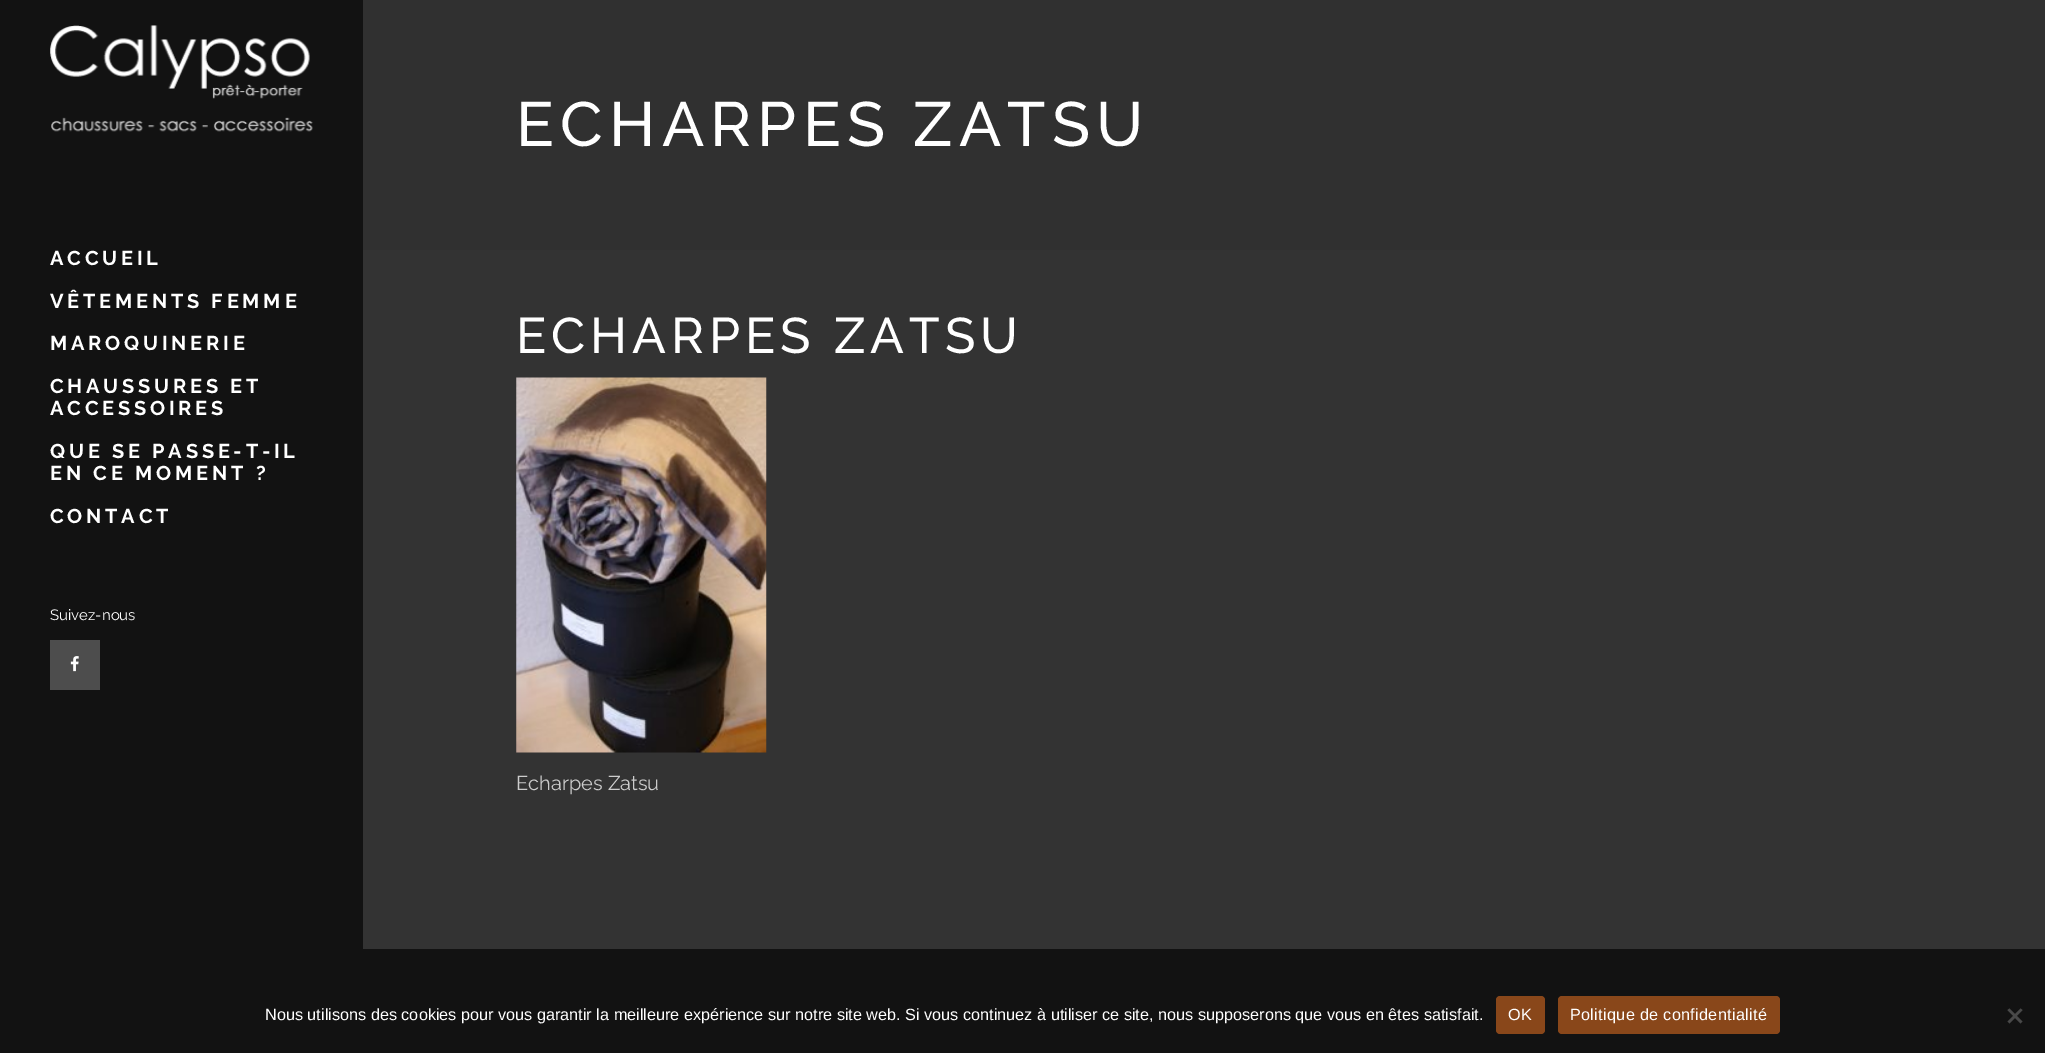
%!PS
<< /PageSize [2045 1053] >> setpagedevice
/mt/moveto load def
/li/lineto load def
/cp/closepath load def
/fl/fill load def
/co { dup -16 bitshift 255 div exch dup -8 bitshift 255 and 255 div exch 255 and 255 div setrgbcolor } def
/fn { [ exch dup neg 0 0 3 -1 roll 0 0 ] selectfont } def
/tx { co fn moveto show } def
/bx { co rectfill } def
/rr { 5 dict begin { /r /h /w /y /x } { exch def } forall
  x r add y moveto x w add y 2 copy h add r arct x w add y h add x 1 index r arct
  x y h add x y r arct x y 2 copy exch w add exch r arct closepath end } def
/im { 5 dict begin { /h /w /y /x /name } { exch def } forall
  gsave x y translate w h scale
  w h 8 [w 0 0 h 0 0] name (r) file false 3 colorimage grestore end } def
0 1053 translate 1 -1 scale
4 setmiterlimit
0 0 2045 1053 16#121212 bx
(media/1.raw) 50 25 263 107 im
50 640 50 50 16#4D4D4D bx
(media/2.raw) 70 656 9 16 im
363 250 1682 699 16#333333 bx
363 0 1682 250 16#303030 bx
(media/3.raw) 516 377 251 376 im
16#89471A co
1496 996 49 38 4 rr fl
1558 996 222 38 4 rr fl
16#494949 co
2020.5 1008.5 mt 2022.5 1010 li 2009.5 1023.5 li 2007.5 1021.5 li cp fl
2007.5 1010 mt 2009.5 1008.5 li 2022.5 1021.5 li 2020.5 1023.5 li cp fl
/Raleway-Bold 20 fn
16#FFFFFF co
50 265 mt 3.75 0 (ACCUEIL) ashow
50 308 mt 3.75 0 (VÊTEMENTS FEMME) ashow
50 350 mt 3.75 0 (MAROQUINERIE) ashow
50 393 mt 3.75 0 (CHAUSSURES ET) ashow
50 415 mt 3.75 0 (ACCESSOIRES) ashow
50 458 mt 3.75 0 (QUE SE PASSE-T-IL) ashow
50 480 mt 3.75 0 (EN CE MOMENT ?) ashow
50 523 mt 3.75 0 (CONTACT) ashow
(Suivez-nous) 50 620 /Raleway-Regular 15 16#FFFFFF tx
/Raleway-Medium 62.5 fn
516 146 mt 6.25 0 (ECHARPES ZATSU) ashow
/Raleway-Medium 50 fn
516 353 mt 5 0 (ECHARPES ZATSU) ashow
(Echarpes Zatsu) 516 790 /Raleway-Regular 20 16#CCCCCC tx
(Nous utilisons des cookies pour vous garantir la meilleure expérience sur notre site web. Si vous continuez à utiliser ce site, nous supposerons que vous en êtes satisfait.) 265 1020 /LiberationSans-Regular 16.25 16#FFFFFF tx
1508 1020 mt .3 0 (OK) ashow
1570 1020 mt .3 0 (Politique de confidentialité) ashow
showpage
